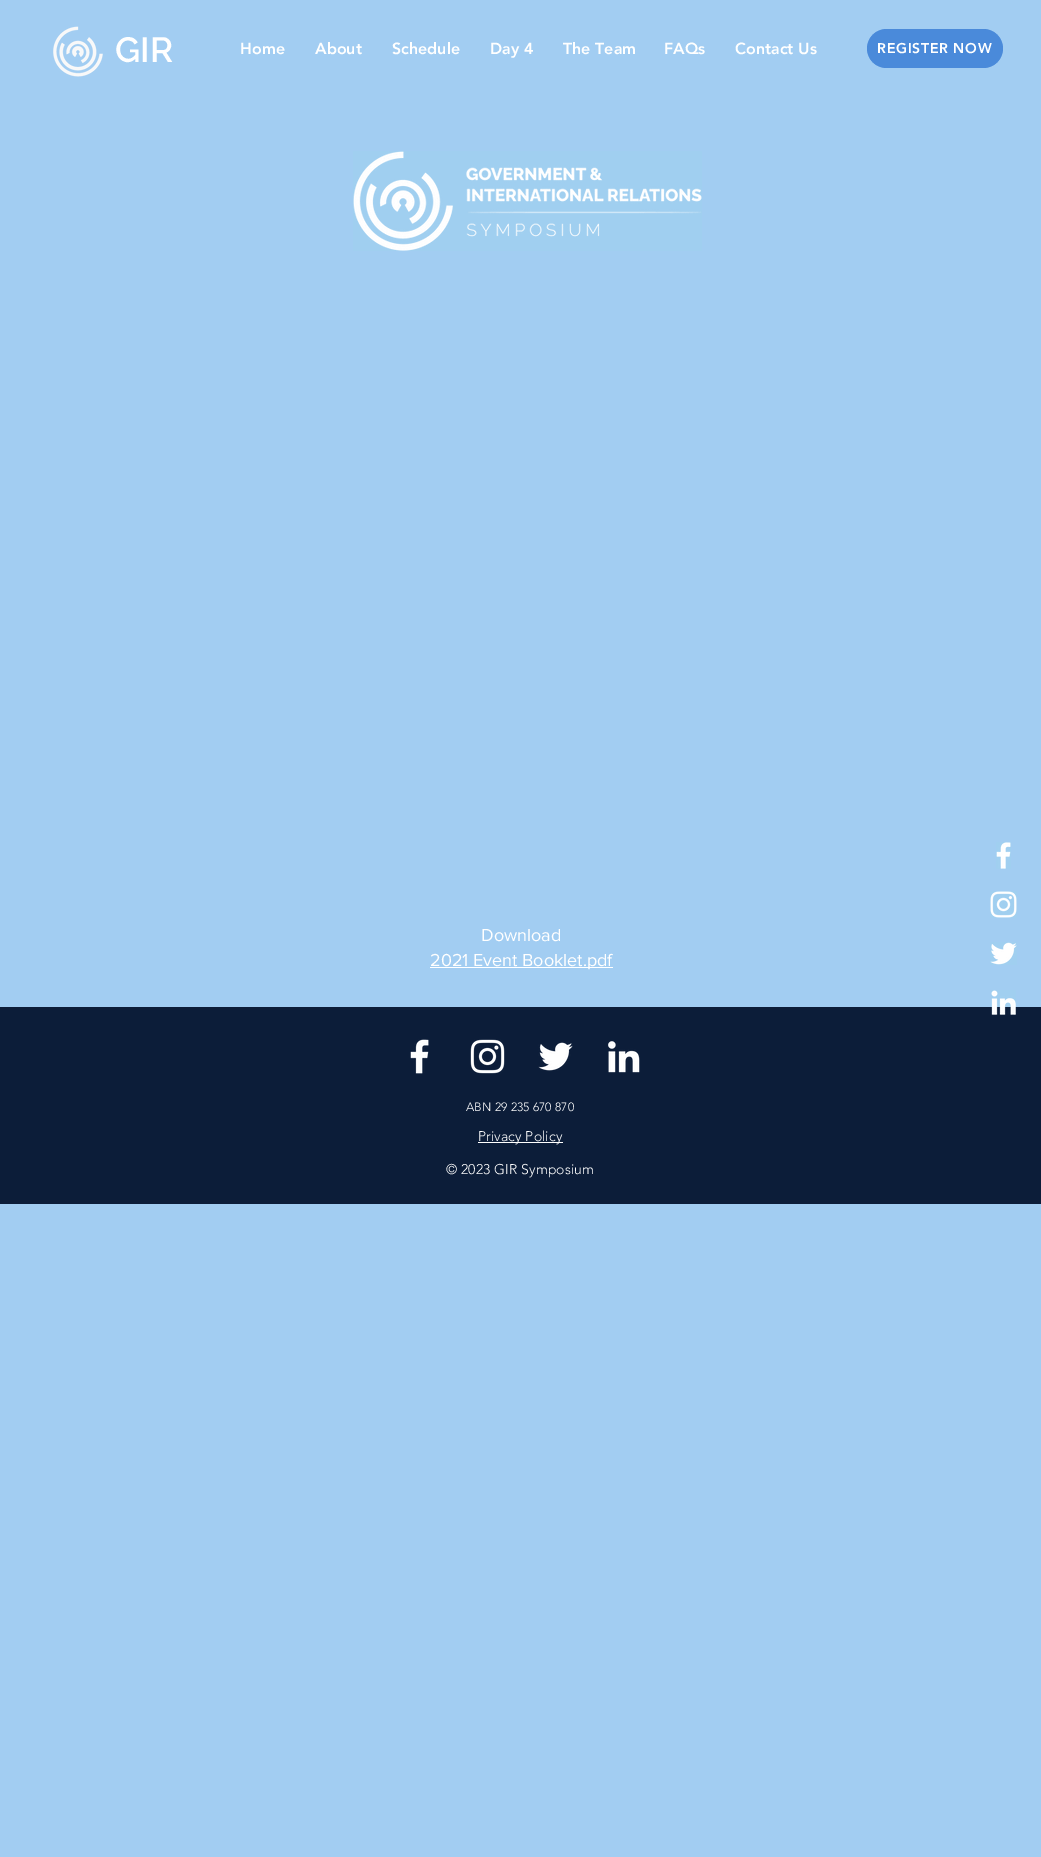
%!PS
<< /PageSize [1041 1857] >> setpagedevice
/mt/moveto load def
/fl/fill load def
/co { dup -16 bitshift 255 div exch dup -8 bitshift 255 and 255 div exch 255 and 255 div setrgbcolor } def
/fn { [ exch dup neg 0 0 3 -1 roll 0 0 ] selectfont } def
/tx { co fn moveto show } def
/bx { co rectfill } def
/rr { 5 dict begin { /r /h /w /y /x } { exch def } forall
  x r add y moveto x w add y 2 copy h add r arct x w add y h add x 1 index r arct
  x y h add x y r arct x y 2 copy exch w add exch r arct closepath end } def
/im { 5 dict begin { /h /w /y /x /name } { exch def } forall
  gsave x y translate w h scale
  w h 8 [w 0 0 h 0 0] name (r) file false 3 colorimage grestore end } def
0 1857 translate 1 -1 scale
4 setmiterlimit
0 0 1041 1857 16#A2CDF2 bx
(media/1.raw) 53 26 50 51 im
16#4A8ADA co
867 29 136 39 19.5 rr fl
(media/2.raw) 353 151 349 100 im
430 967 183 1 16#FFFFFF bx
(media/3.raw) 996 842 15 27 im
(media/4.raw) 990 891 27 27 im
(media/5.raw) 990 942 27 23 im
0 1007 1041 197 16#0C1D39 bx
(media/6.raw) 991 990 25 25 im
(media/7.raw) 410 1039 19 35 im
(media/8.raw) 470 1039 35 35 im
(media/9.raw) 538 1042 35 29 im
(media/10.raw) 608 1041 32 32 im
478 1142 85 1 16#FFFFFF bx
(GIR) 115 62 /Raleway-SemiBold 35 16#FFFFFF tx
(Home) 240 54 /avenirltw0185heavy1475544-Black 16 16#FFFFFF tx
(About) 315 54 /avenirltw0185heavy1475544-Black 16 16#FFFFFF tx
(Schedule) 392 54 /avenirltw0185heavy1475544-Black 16 16#FFFFFF tx
(Day 4) 490 54 /avenirltw0185heavy1475544-Black 16 16#FFFFFF tx
(The Team) 563 54 /avenirltw0185heavy1475544-Black 16 16#FFFFFF tx
(FAQs) 664 54 /avenirltw0185heavy1475544-Black 16 16#FFFFFF tx
(Contact Us) 735 54 /avenirltw0185heavy1475544-Black 16 16#FFFFFF tx
/avenirltw0185heavy1475544-Black 14 fn
877 53 mt .75 0 (REGISTER NOW) ashow
(Download) 481 941 /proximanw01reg-Regular 18 16#FFFFFF tx
(2021 Event Booklet.pdf) 430 966 /proximanw01reg-Regular 18 16#FFFFFF tx
/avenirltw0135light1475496-Light 12 fn
466 1111 mt .1 0 (ABN 29 235 670 870) ashow
/avenirltw0135light1475496-Light 14 fn
478 1141 mt .1 0 (Privacy Policy) ashow
446 1174 mt .1 0 (© 2023 GIR Symposium) ashow
showpage
